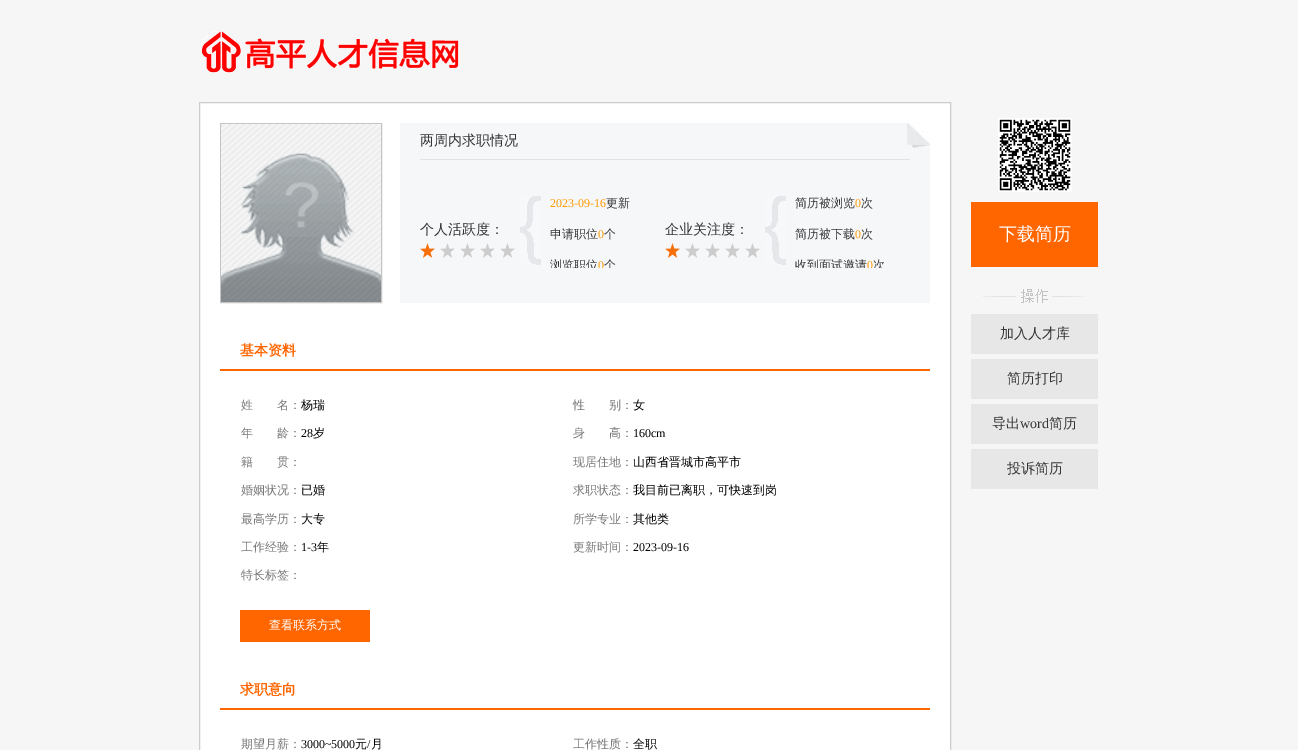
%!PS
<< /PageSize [1298 750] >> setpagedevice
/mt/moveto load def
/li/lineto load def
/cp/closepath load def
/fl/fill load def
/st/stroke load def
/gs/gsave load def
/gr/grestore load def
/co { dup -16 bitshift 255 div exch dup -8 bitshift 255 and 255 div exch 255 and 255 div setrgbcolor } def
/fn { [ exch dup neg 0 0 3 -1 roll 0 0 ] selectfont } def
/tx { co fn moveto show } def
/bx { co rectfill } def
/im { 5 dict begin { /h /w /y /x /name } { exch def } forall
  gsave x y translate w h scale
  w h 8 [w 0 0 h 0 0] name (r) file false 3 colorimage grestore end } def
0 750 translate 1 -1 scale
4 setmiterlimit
0 0 1298 750 16#F6F6F6 bx
(media/1.raw) 201 31 258 42 im
16#FFFFFF co
199.5 102.5 mt 950.5 102.5 li 950.5 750.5 li 199.5 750.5 li cp gs fl gr
16#CCCCCC co
st
16#C5C5C5 co
220.5 123.5 161 179 rectstroke
(media/2.raw) 221 124 160 178 im
400 123 530 180 16#F6F7F9 bx
420 159 490 1 16#E2E2E2 bx
(media/3.raw) 907 123 23 25 im
(media/4.raw) 420 243 95 15 im
(media/5.raw) 520 196 21 69 im
(media/4.raw) 665 243 95 15 im
(media/5.raw) 765 196 21 69 im
220 369 710 2 16#FF6600 bx
240 610 130 32 16#FF6600 bx
220 708 710 2 16#FF6600 bx
(media/6.raw) 998 118 74 74 im
971 202 127 65 16#FF6600 bx
(media/7.raw) 981 289 104 14 im
971 314 127 40 16#E7E7E7 bx
971 359 127 40 16#E7E7E7 bx
971 404 127 40 16#E7E7E7 bx
971 449 127 40 16#E7E7E7 bx
(两周内求职情况) 420 145 /WenQuanYiZenHei-Medium 14 16#333333 tx
(个人活跃度：) 420 234 /WenQuanYiZenHei-Medium 14 16#333333 tx
(2023-09-16) 550 207 /LiberationSerif-Regular 12 16#FF9900 tx
(更新) 606 207 /WenQuanYiZenHei-Medium 12 16#333333 tx
(申请职位) 550 238 /WenQuanYiZenHei-Medium 12 16#333333 tx
(0) 598 238 /LiberationSerif-Regular 12 16#FF9900 tx
(个) 604 238 /WenQuanYiZenHei-Medium 12 16#333333 tx
gs
520 195 110 73 rectclip
(浏览职位) 550 269 /WenQuanYiZenHei-Medium 12 16#333333 tx
(0) 598 269 /LiberationSerif-Regular 12 16#FF9900 tx
(个) 604 269 /WenQuanYiZenHei-Medium 12 16#333333 tx
gr
(企业关注度：) 665 234 /WenQuanYiZenHei-Medium 14 16#333333 tx
(简历被浏览) 795 207 /WenQuanYiZenHei-Medium 12 16#333333 tx
(0) 855 207 /LiberationSerif-Regular 12 16#FF9900 tx
(次) 861 207 /WenQuanYiZenHei-Medium 12 16#333333 tx
(简历被下载) 795 238 /WenQuanYiZenHei-Medium 12 16#333333 tx
(0) 855 238 /LiberationSerif-Regular 12 16#FF9900 tx
(次) 861 238 /WenQuanYiZenHei-Medium 12 16#333333 tx
gs
765 195 120 73 rectclip
(收到面试邀请) 795 269 /WenQuanYiZenHei-Medium 12 16#333333 tx
(0) 867 269 /LiberationSerif-Regular 12 16#FF9900 tx
(次) 873 269 /WenQuanYiZenHei-Medium 12 16#333333 tx
gr
(基本资料) 240 355 /WenQuanYiZenHei-Bold 14 16#FF6600 tx
(姓) 241 409 /WenQuanYiZenHei-Medium 12 16#777777 tx
(名：) 277 409 /WenQuanYiZenHei-Medium 12 16#777777 tx
(杨瑞) 301 409 /WenQuanYiZenHei-Medium 12 16#000000 tx
(性) 573 409 /WenQuanYiZenHei-Medium 12 16#777777 tx
(别：) 609 409 /WenQuanYiZenHei-Medium 12 16#777777 tx
(女) 633 409 /WenQuanYiZenHei-Medium 12 16#000000 tx
(年) 241 437 /WenQuanYiZenHei-Medium 12 16#777777 tx
(龄：) 277 437 /WenQuanYiZenHei-Medium 12 16#777777 tx
(28) 301 437 /LiberationSerif-Regular 12 16#000000 tx
(岁) 313 437 /WenQuanYiZenHei-Medium 12 16#000000 tx
(身) 573 437 /WenQuanYiZenHei-Medium 12 16#777777 tx
(高：) 609 437 /WenQuanYiZenHei-Medium 12 16#777777 tx
(160cm) 633 437 /LiberationSerif-Regular 12 16#000000 tx
(籍) 241 466 /WenQuanYiZenHei-Medium 12 16#777777 tx
(贯：) 277 466 /WenQuanYiZenHei-Medium 12 16#777777 tx
(现居住地：) 573 466 /WenQuanYiZenHei-Medium 12 16#777777 tx
(山西省晋城市高平市) 633 466 /WenQuanYiZenHei-Medium 12 16#000000 tx
(婚姻状况：) 241 494 /WenQuanYiZenHei-Medium 12 16#777777 tx
(已婚) 301 494 /WenQuanYiZenHei-Medium 12 16#000000 tx
(求职状态：) 573 494 /WenQuanYiZenHei-Medium 12 16#777777 tx
(我目前已离职，可快速到岗) 633 494 /WenQuanYiZenHei-Medium 12 16#000000 tx
(最高学历：) 241 523 /WenQuanYiZenHei-Medium 12 16#777777 tx
(大专) 301 523 /WenQuanYiZenHei-Medium 12 16#000000 tx
(所学专业：) 573 523 /WenQuanYiZenHei-Medium 12 16#777777 tx
(其他类) 633 523 /WenQuanYiZenHei-Medium 12 16#000000 tx
(工作经验：) 241 551 /WenQuanYiZenHei-Medium 12 16#777777 tx
(1-3) 301 551 /LiberationSerif-Regular 12 16#000000 tx
(年) 317 551 /WenQuanYiZenHei-Medium 12 16#000000 tx
(更新时间：) 573 551 /WenQuanYiZenHei-Medium 12 16#777777 tx
(2023-09-16) 633 551 /LiberationSerif-Regular 12 16#000000 tx
(特长标签：) 241 579 /WenQuanYiZenHei-Medium 12 16#777777 tx
(查看联系方式) 269 629 /WenQuanYiZenHei-Medium 12 16#FFFFFF tx
(求职意向) 240 694 /WenQuanYiZenHei-Bold 14 16#FF6600 tx
(期望月薪：) 241 748 /WenQuanYiZenHei-Medium 12 16#777777 tx
(3000~5000) 301 748 /LiberationSerif-Regular 12 16#000000 tx
(元 月) 355 748 /WenQuanYiZenHei-Medium 12 16#000000 tx
(/) 367 748 /LiberationSerif-Regular 12 16#000000 tx
(工作性质：) 573 748 /WenQuanYiZenHei-Medium 12 16#777777 tx
(全职) 633 748 /WenQuanYiZenHei-Medium 12 16#000000 tx
(下载简历) 999 240 /WenQuanYiZenHei-Medium 18 16#FFFFFF tx
(加入人才库) 1000 338 /WenQuanYiZenHei-Medium 14 16#333333 tx
(简历打印) 1007 383 /WenQuanYiZenHei-Medium 14 16#333333 tx
(导出) 992 428 /WenQuanYiZenHei-Medium 14 16#333333 tx
(word) 1020 428 /LiberationSerif-Regular 14 16#333333 tx
(简历) 1049 428 /WenQuanYiZenHei-Medium 14 16#333333 tx
(投诉简历) 1007 473 /WenQuanYiZenHei-Medium 14 16#333333 tx
showpage
